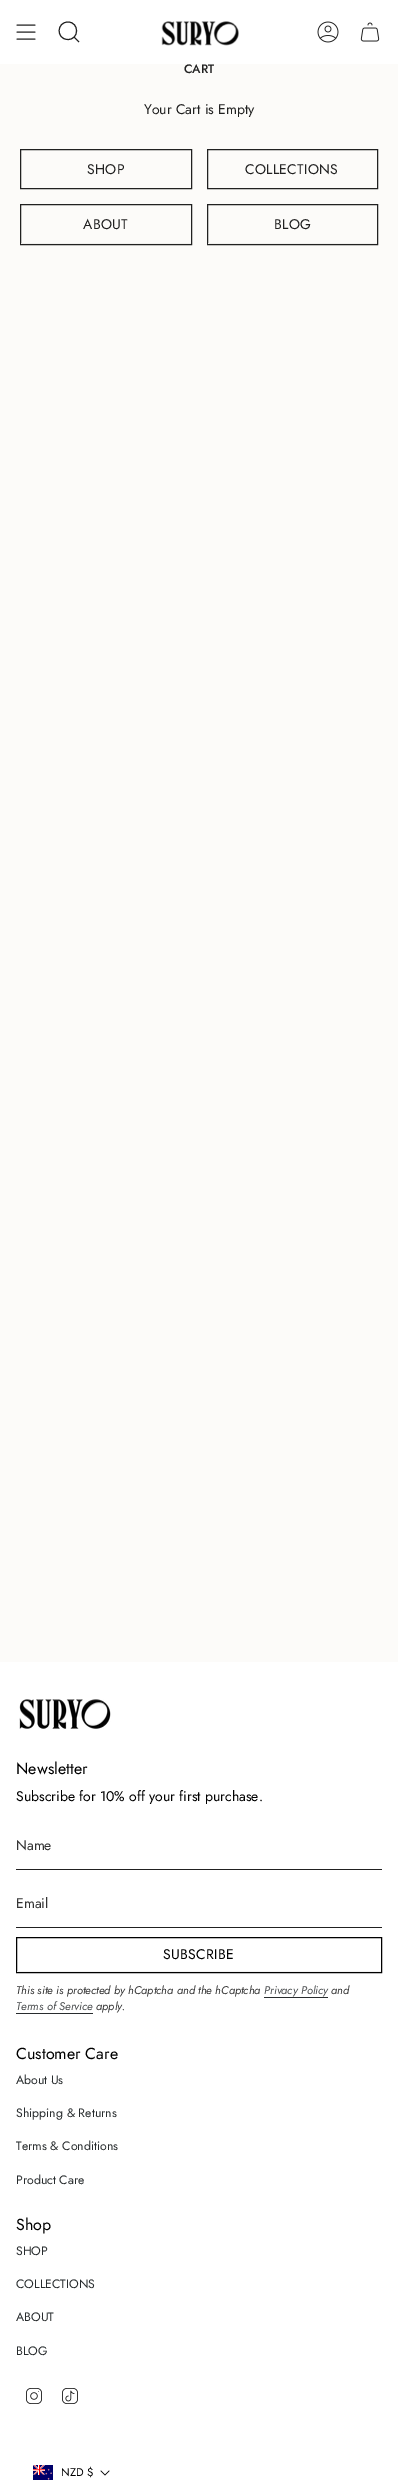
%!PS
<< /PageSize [398 2489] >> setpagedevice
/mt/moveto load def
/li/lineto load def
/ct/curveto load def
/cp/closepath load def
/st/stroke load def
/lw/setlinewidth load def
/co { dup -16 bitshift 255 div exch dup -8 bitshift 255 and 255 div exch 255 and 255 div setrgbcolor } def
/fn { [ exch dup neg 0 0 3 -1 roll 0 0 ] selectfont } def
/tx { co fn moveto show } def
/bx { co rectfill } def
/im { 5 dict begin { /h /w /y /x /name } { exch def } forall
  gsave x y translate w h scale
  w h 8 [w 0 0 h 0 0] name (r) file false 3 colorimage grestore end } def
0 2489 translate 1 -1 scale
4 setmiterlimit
0 0 398 2489 16#FCFBF9 bx
0 0 398 64 16#FFFFFF bx
16#212121 co
1 setlinecap
1 setlinejoin
17 25 mt 35 25 li 17 32 mt 35 32 li 17 39 mt 35 39 li st
0 setlinecap
0 setlinejoin
68 22 mt 79.5 22 79.5 40 67.5 39.5 ct 56 39 56.5 22 68 22 ct cp 74 37 mt 79 42 li st
(media/1.raw) 161 21 78 25 im
(media/2.raw) 317 21 22 22 im
(media/3.raw) 360 22 20 20 im
20.5 149.5 171 39 rectstroke
207.5 149.5 170 39 rectstroke
20.5 204.5 171 40 rectstroke
21 243 170 1 16#F1F0EE bx
16#212121 co
207.5 204.5 170 40 rectstroke
208 243 169 1 16#F1F0EE bx
0 1662 398 827 16#FFFFFF bx
(media/4.raw) 19 1699 92 30 im
16 1869 366 1 16#212121 bx
16 1927 366 1 16#212121 bx
16#000000 co
16.5 1937.5 365 35 rectstroke
17 1971 364 1 16#F2F2F2 bx
264 1997 64 1 16#282C2E bx
16 2013 77 1 16#282C2E bx
(media/5.raw) 26 2388 16 16 im
(media/6.raw) 62 2388 16 16 im
(media/7.raw) 33 2465 20 15 im
16#000000 co
.7 lw
1 setlinecap
1 setlinejoin
101 2471 mt 105 2475 li 109 2471 li st
(CART) 184 73 /Jost-Medium 12.25 16#212121 tx
(Your Cart is Empty) 144 114 /Jost-Regular 14 16#212121 tx
87 174 mt .3 0 (SHOP) ashow
245 174 mt .3 0 (COLLECTIONS) ashow
83 229 mt .3 0 (ABOUT) ashow
274 229 mt .3 0 (BLOG) ashow
(Newsletter) 16 1774 /Jost-Regular 16 16#000000 tx
(Subscribe for 10% off your first purchase.) 16 1801 /Jost-Regular 14 16#000000 tx
(Name) 16 1850 /Jost-Regular 14 16#333333 tx
(Email) 16 1908 /Jost-Regular 14 16#333333 tx
16#000000 co
163 1959 mt .3 0 (SUBSCRIBE) ashow
(This site is protected by hCaptcha and the hCaptcha) 16 1994 /Jost-Italic 11.2 16#333333 tx
(Privacy Policy) 264 1994 /Jost-Italic 11.2 16#494C4E tx
(and) 331 1994 /Jost-Italic 11.2 16#333333 tx
(Terms of Service) 16 2010 /Jost-Italic 11.2 16#494C4E tx
(apply.) 96 2010 /Jost-Italic 11.2 16#333333 tx
(Customer Care) 16 2059 /Jost-Regular 16 16#000000 tx
(About Us) 16 2084 /Jost-Regular 12.25 16#282C2E tx
(Shipping & Returns) 16 2117 /Jost-Regular 12.25 16#282C2E tx
(Terms & Conditions) 16 2150 /Jost-Regular 12.25 16#282C2E tx
(Product Care) 16 2184 /Jost-Regular 12.25 16#282C2E tx
(Shop) 16 2230 /Jost-Regular 16 16#000000 tx
(SHOP) 16 2255 /Jost-Regular 12.25 16#282C2E tx
(COLLECTIONS) 16 2288 /Jost-Regular 12.25 16#282C2E tx
(ABOUT) 16 2321 /Jost-Regular 12.25 16#282C2E tx
(BLOG) 16 2355 /Jost-Regular 12.25 16#282C2E tx
(NZD $) 61 2476 /Jost-Regular 11.2 16#000000 tx
showpage
